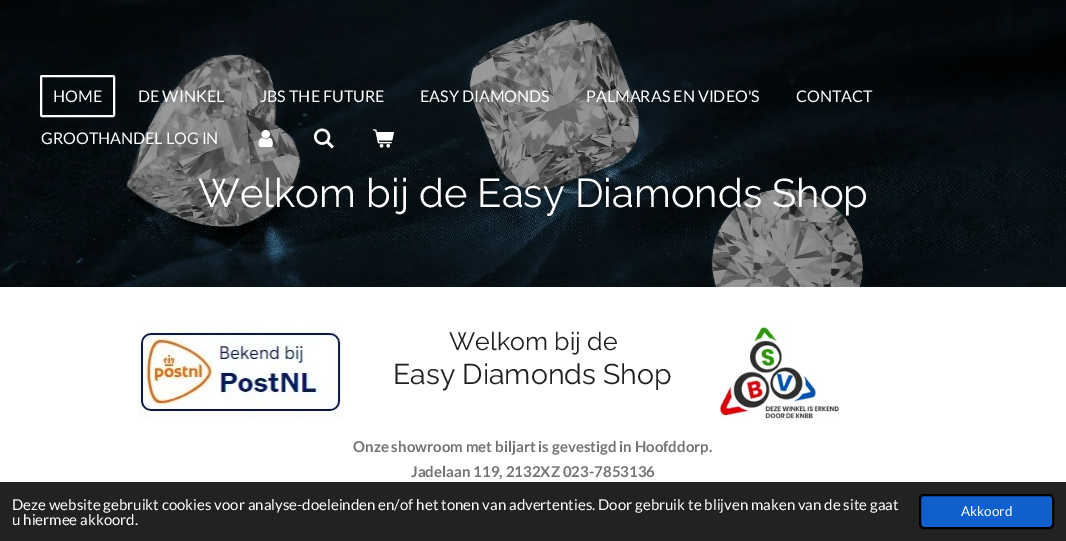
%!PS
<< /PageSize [1066 541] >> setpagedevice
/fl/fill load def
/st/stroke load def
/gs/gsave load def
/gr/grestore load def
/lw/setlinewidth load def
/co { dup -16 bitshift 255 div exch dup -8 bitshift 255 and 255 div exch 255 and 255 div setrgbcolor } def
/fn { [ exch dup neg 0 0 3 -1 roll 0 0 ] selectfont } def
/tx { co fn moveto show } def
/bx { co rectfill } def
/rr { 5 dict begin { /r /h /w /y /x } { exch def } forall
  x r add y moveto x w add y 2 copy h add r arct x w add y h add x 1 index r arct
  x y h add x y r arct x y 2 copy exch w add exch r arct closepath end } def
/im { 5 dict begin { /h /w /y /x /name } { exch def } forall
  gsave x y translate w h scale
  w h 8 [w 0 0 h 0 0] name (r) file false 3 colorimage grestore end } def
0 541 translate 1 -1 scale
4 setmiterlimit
0 0 1066 541 16#FFFFFF bx
(media/4.raw) 0 0 1066 287 im
2 lw
41 76 73 40 1 rr st
(media/1.raw) 258 129 15 19 im
(media/2.raw) 314 128 20 21 im
(media/3.raw) 373 129 21 19 im
(media/5.raw) 137 327 207 92 im
(media/6.raw) 720 327 119 92 im
0 482 1066 59 16#222222 bx
16#0F5FCE co
920 495 133 33 4 rr gs fl gr
16#000000 co
st
(HOME) 53 102 /Lato-Regular 16 16#FFFFFF tx
(DE WINKEL) 138 102 /Lato-Regular 16 16#FFFFFF tx
(JBS THE FUTURE) 260 102 /Lato-Regular 16 16#FFFFFF tx
(EASY DIAMONDS) 420 102 /Lato-Regular 16 16#FFFFFF tx
(PALMARAS EN VIDEO'S) 586 102 /Lato-Regular 16 16#FFFFFF tx
(CONTACT) 796 102 /Lato-Regular 16 16#FFFFFF tx
(GROOTHANDEL LOG IN) 41 144 /Lato-Regular 16 16#FFFFFF tx
(Welkom bij de Easy Diamonds Shop) 198 207 /Raleway-Regular 40 16#FFFFFF tx
(Welkom bij de) 449 350 /Raleway-Regular 25 16#202020 tx
(Easy Diamonds Shop) 393 384 /Raleway-Regular 28.5 16#202020 tx
(Onze showroom met biljart is gevestigd in Hoofddorp.) 353 452 /Lato-Bold 15 16#737373 tx
(Jadelaan 119, 2132XZ 023-7853136) 411 477 /Lato-Bold 15 16#737373 tx
(Deze website gebruikt cookies voor analyse-doeleinden en/of het tonen van advertenties. Door gebruik te blijven maken van de site gaat) 12 510 /Lato-Regular 15 16#FFFFFF tx
(u hiermee akkoord.) 12 525 /Lato-Regular 15 16#FFFFFF tx
(Akkoord) 961 516 /Lato-Regular 13.5 16#FFFFFF tx
showpage
